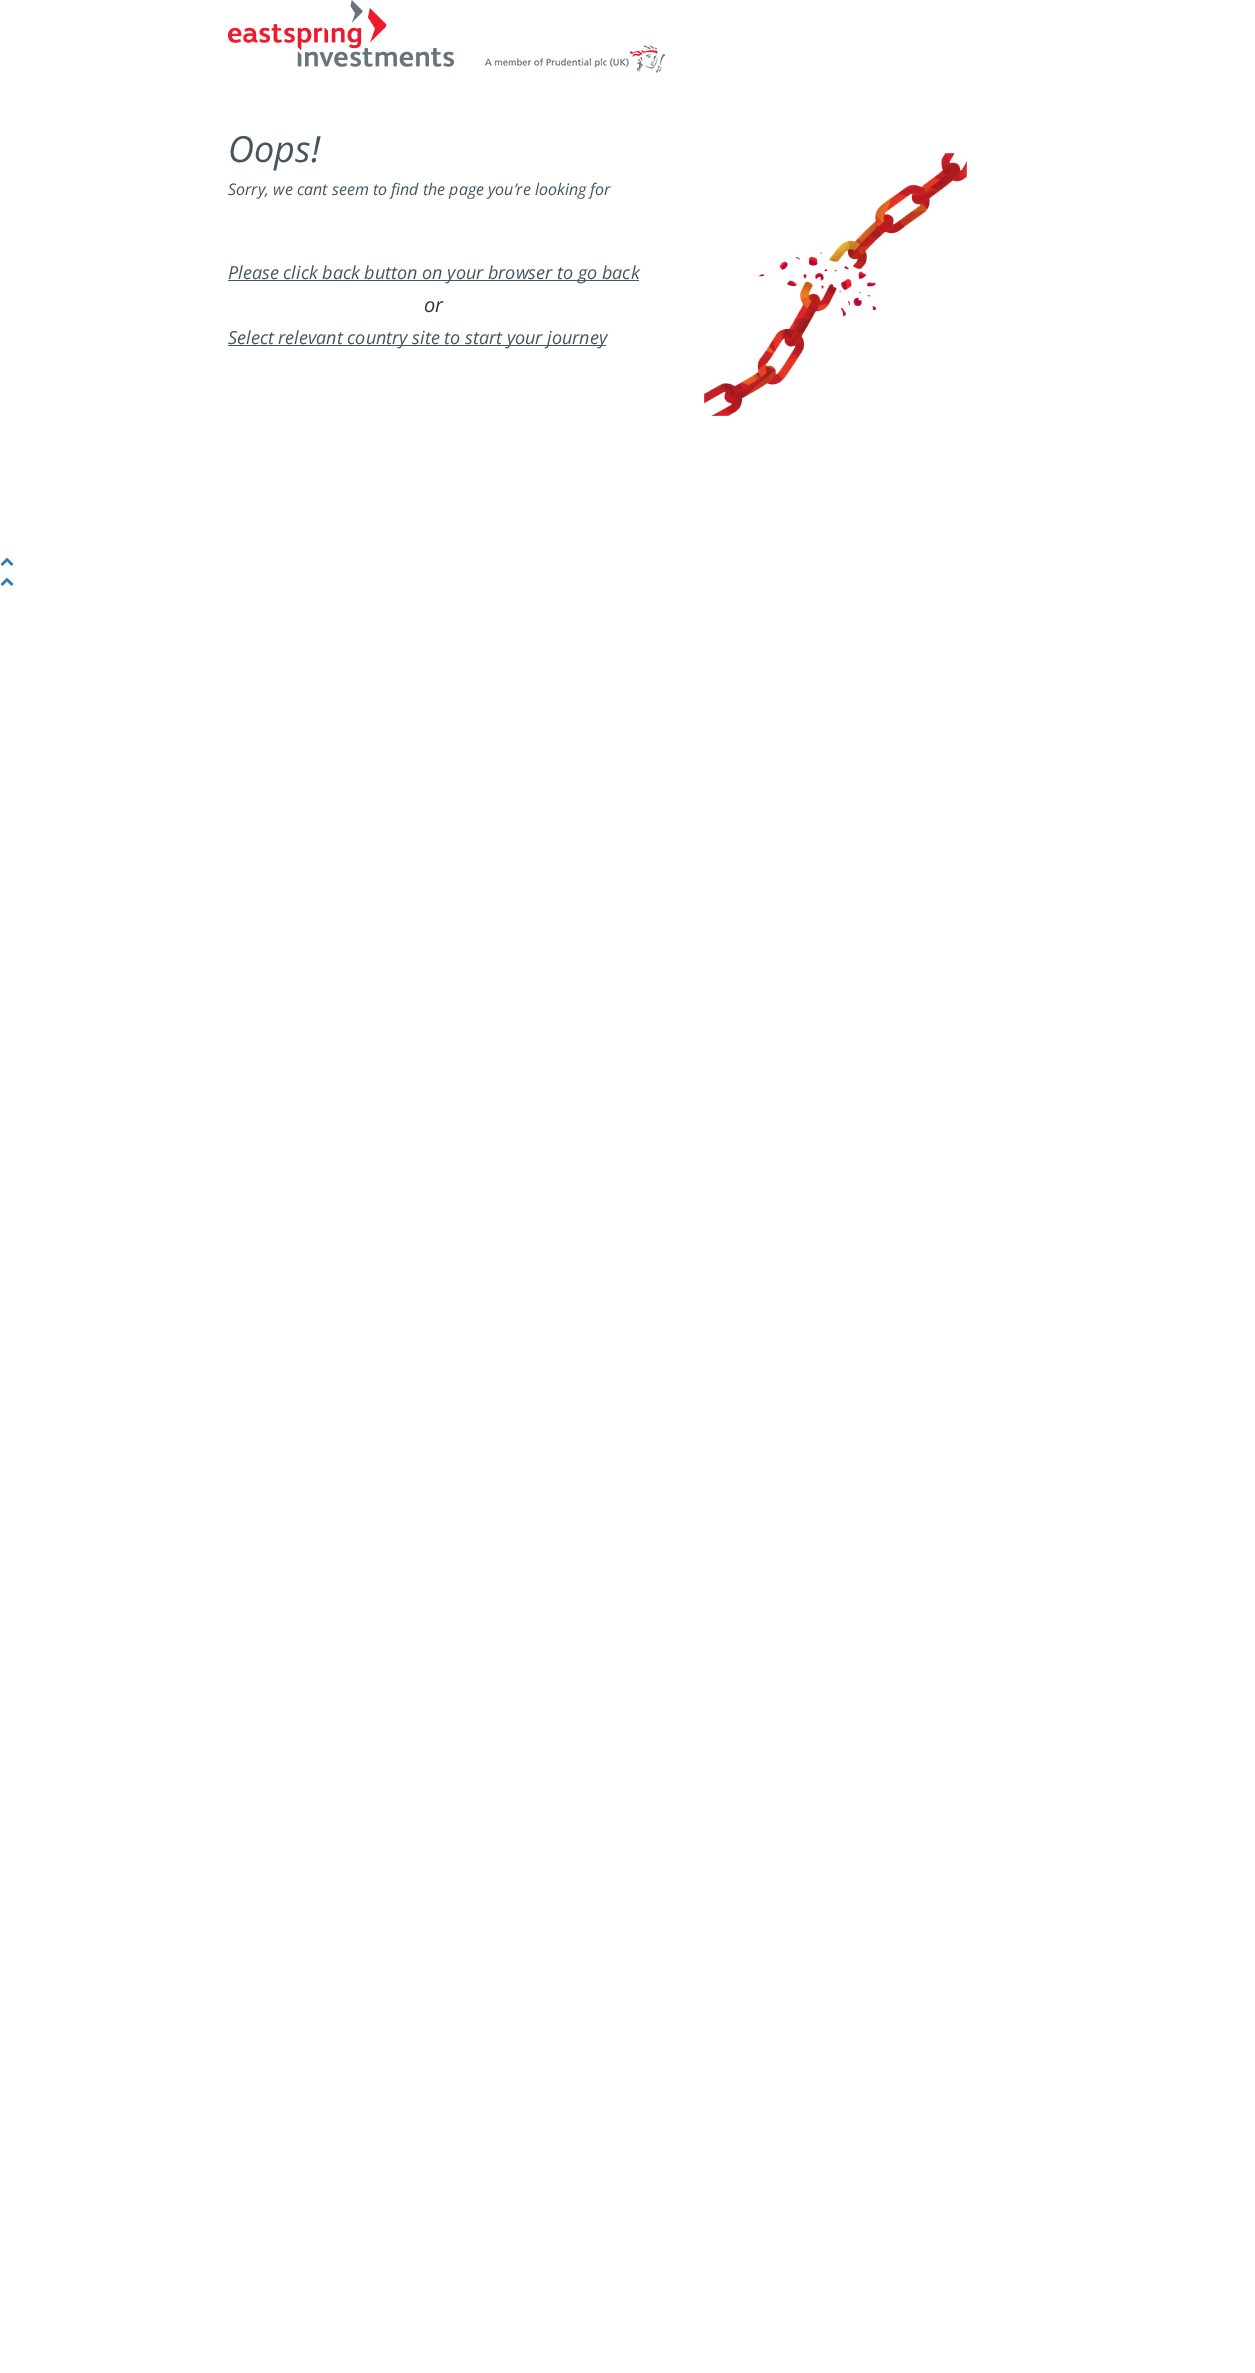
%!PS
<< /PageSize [1255 2373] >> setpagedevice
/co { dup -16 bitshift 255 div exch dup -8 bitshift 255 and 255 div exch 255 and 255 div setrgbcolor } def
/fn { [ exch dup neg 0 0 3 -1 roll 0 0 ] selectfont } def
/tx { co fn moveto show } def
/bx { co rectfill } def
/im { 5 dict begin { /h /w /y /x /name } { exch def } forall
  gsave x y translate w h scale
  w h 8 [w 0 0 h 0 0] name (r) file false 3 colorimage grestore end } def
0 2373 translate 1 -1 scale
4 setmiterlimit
0 0 1255 2373 16#FFFFFF bx
(media/1.raw) 228 0 437 73 im
(media/2.raw) 704 153 263 263 im
228 280 411 1 16#455560 bx
228 345 378 1 16#455560 bx
(media/3.raw) 0 557 14 9 im
(media/3.raw) 0 577 14 9 im
(Oops!) 228 162 /OpenSans-Italic 36 16#455560 tx
(Sorry, we cant seem to find the page you’re looking for) 228 195 /OpenSans-Italic 16 16#455560 tx
(Please click back button on your browser to go back) 228 279 /OpenSans-Italic 18 16#455560 tx
(or) 424 312 /OpenSans-Italic 20 16#333333 tx
(Select relevant country site to start your journey) 228 344 /OpenSans-Italic 18 16#455560 tx
showpage
